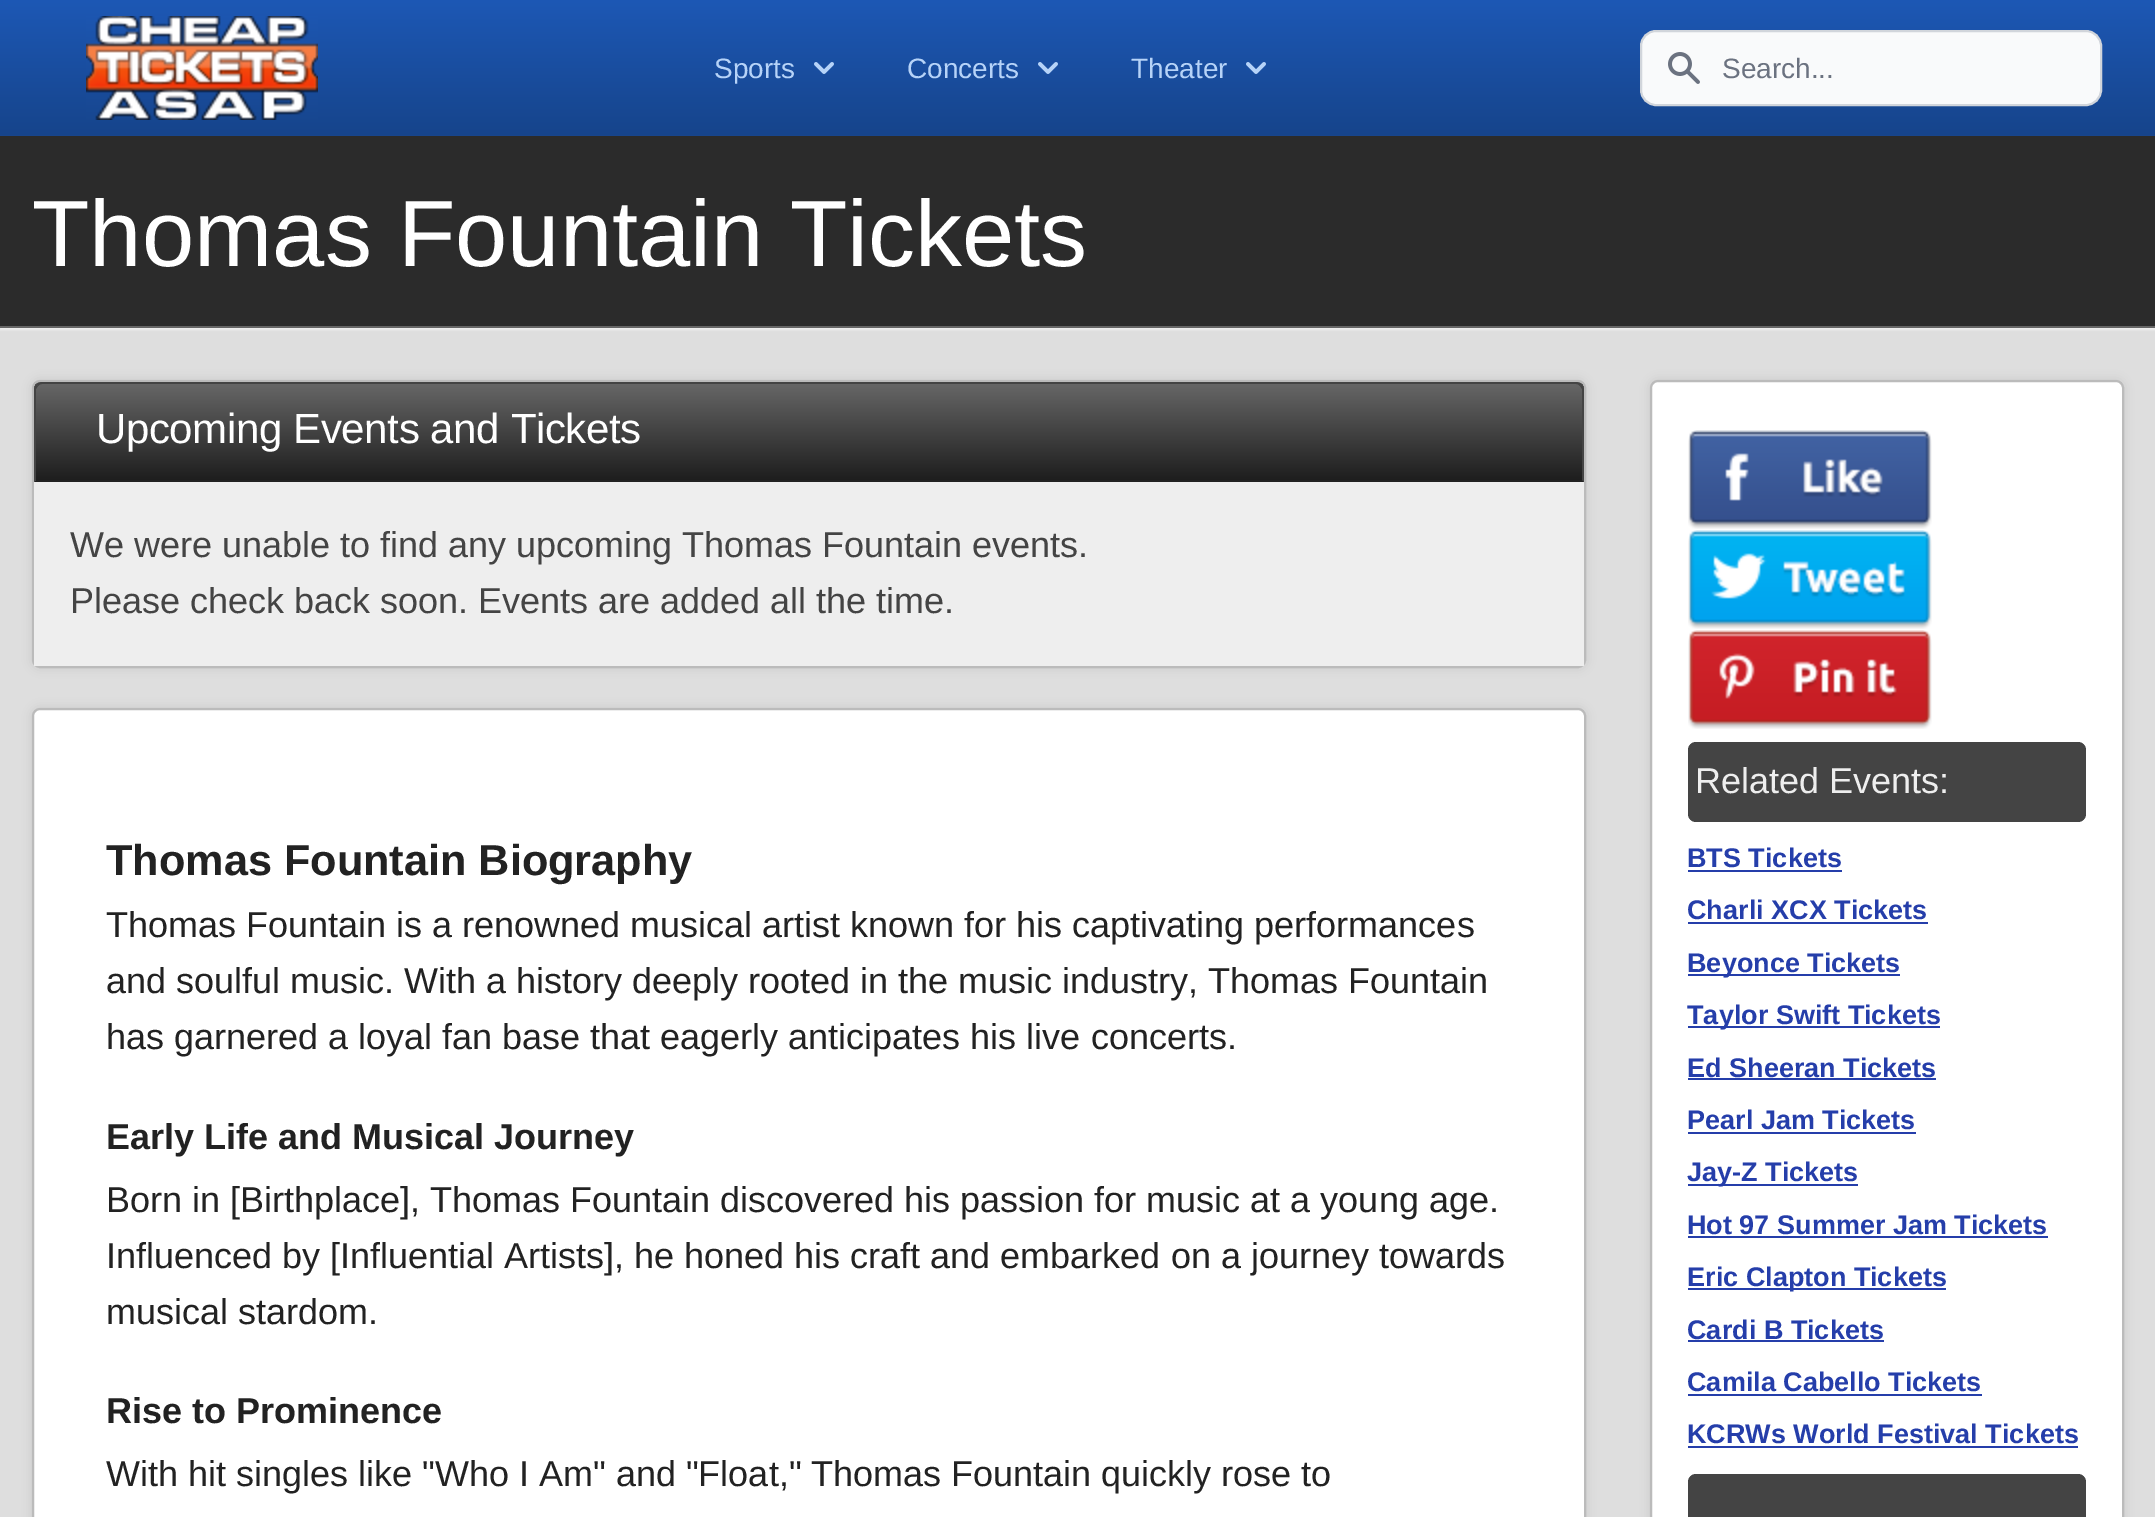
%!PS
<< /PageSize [2155 1517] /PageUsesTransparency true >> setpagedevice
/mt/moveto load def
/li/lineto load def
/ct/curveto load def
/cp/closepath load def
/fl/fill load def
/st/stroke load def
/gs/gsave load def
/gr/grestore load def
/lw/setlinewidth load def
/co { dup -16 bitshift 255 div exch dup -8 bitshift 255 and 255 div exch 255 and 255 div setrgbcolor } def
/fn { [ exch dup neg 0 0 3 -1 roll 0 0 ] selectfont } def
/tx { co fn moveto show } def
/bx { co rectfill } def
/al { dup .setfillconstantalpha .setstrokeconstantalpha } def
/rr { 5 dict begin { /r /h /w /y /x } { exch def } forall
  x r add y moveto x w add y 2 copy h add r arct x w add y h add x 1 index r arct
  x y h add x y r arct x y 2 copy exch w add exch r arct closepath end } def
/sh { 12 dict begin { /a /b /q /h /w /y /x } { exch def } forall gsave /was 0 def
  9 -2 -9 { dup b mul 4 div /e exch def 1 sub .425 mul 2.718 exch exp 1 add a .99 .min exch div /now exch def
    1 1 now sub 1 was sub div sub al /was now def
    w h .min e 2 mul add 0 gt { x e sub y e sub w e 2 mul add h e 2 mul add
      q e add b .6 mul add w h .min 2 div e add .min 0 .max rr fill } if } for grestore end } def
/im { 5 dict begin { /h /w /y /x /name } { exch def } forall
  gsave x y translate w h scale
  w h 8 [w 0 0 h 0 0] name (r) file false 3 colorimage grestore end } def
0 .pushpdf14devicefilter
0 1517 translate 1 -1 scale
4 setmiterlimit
0 0 2155 1517 16#DEDEDE bx
gs 0 0 mt 2155 0 li 2155 136 li 0 136 li cp clip newpath
<< /ShadingType 2 /ColorSpace /DeviceRGB /Coords [1078 0 1078 136] /Extend [true true] /Function << /FunctionType 2 /Domain [0 1] /C0 [.114 .345 .71] /C1 [.086 .267 .545] /N 1 >> >> shfill gr
(media/1.raw) 86 16 232 104 im
(media/2.raw) 814 62 20 12 im
(media/2.raw) 1038 62 20 12 im
(media/2.raw) 1246 62 20 12 im
16#F9FAFB co
1641 31 460 74 15 rr gs fl gr
16#D1D5DB co
2 lw
st
(media/3.raw) 1668 52 32 32 im
16#EEEEEE co
0 138 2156 192 0 1 1 sh
0 136 2155 190 16#2B2B2B bx
0 326 2155 2 16#666666 bx
16#C7C7C7 co
32 380 1554 288 8 5 1 sh
16#777777 co
33 381 1552 286 7 rr gs fl gr
16#BBBBBB co
st
gs
42 382 mt 1576 382 li 1580.5 382 1584 385.5 1584 390 ct 1584 482 li 34 482 li 34 390 li 34 385.5 37.5 382 42 382 ct cp clip newpath
gs 34 384 mt 1584 384 li 1584 480 li 34 480 li cp clip newpath
<< /ShadingType 2 /ColorSpace /DeviceRGB /Coords [809 384 809 480] /Extend [true true] /Function << /FunctionType 2 /Domain [0 1] /C0 [.4 .4 .4] /C1 [.118 .118 .118] /N 1 >> >> shfill gr
gr
16#444444 co
42 382 mt 40 382 38 383 36 384 ct 38 386 li 39 385 40 384 42 384 ct 1576 384 li 1578 384 1579 385 1580 386 ct 1582 384 li 1580 383 1578 382 1576 382 ct cp fl
1584 482 mt 1584 390 li 1584 388 1583 386 1582 384 ct 1580 386 li 1582 389 li 1582 480 li cp fl
16#222222 co
1584 482 mt 1582 480 li 36 480 li 34 482 li cp fl
16#444444 co
34 482 mt 36 480 li 36 389 li 38 386 li 36 384 li 35 386 34 388 34 390 ct cp fl
34 482 1550 184 16#EEEEEE bx
16#C7C7C7 co
32 708 1554 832 8 5 1 sh
16#FFFFFF co
33 709 1552 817 7 rr gs fl gr
16#BBBBBB co
st
16#C7C7C7 co
1650 380 474 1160 8 5 1 sh
16#FFFFFF co
1651 381 472 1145 7 rr gs fl gr
16#BBBBBB co
st
(media/4.raw) 1688 430 244 99 im
(media/5.raw) 1688 530 244 99 im
(media/6.raw) 1688 630 244 99 im
16#444444 co
1688 742 398 80 8 rr fl
1688 870 154 2 16#253EAA bx
1688 922 240 2 16#253EAA bx
1688 974 212 2 16#253EAA bx
1688 1026 252 2 16#253EAA bx
1688 1078 248 2 16#253EAA bx
1688 1132 228 2 16#253EAA bx
1688 1184 170 2 16#253EAA bx
1688 1236 360 2 16#253EAA bx
1688 1288 258 2 16#253EAA bx
1688 1340 196 2 16#253EAA bx
1688 1394 294 2 16#253EAA bx
1688 1446 390 2 16#253EAA bx
16#444444 co
1688 1474 398 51 8 rr fl
(Sports) 714 78 /LiberationSans-Regular 28 16#B6D3F8 tx
(Concerts) 907 78 /LiberationSans-Regular 28 16#B6D3F8 tx
(Theater) 1131 78 /LiberationSans-Regular 28 16#B6D3F8 tx
(Search...) 1722 78 /LiberationSans-Regular 28 16#6B7280 tx
(Thomas Fountain Tickets) 32 266 /LiberationSans-Regular 94 16#FFFFFF tx
/LiberationSans-Regular 42 fn
96 443 mt -.4 0 (Upcoming Events and Tickets) ashow
(We were unable to find any upcoming Thomas Fountain events.) 70 557 /LiberationSans-Regular 36 16#444444 tx
(Please check back soon. Events are added all the time.) 70 613 /LiberationSans-Regular 36 16#444444 tx
(Thomas Fountain Biography) 106 875 /LiberationSans-Bold 43.25 16#222222 tx
(Thomas Fountain is a renowned musical artist known for his captivating performances) 106 937 /LiberationSans-Regular 36 16#222222 tx
(and soulful music. With a history deeply rooted in the music industry, Thomas Fountain) 106 993 /LiberationSans-Regular 36 16#222222 tx
(has garnered a loyal fan base that eagerly anticipates his live concerts.) 106 1049 /LiberationSans-Regular 36 16#222222 tx
(Early Life and Musical Journey) 106 1149 /LiberationSans-Bold 36 16#222222 tx
(Born in [Birthplace], Thomas Fountain discovered his passion for music at a young age.) 106 1212 /LiberationSans-Regular 36 16#222222 tx
(Influenced by [Influential Artists], he honed his craft and embarked on a journey towards) 106 1268 /LiberationSans-Regular 36 16#222222 tx
(musical stardom.) 106 1324 /LiberationSans-Regular 36 16#222222 tx
(Rise to Prominence) 106 1423 /LiberationSans-Bold 36 16#222222 tx
(With hit singles like "Who I Am" and "Float," Thomas Fountain quickly rose to) 106 1486 /LiberationSans-Regular 36 16#222222 tx
(Related Events:) 1695 793 /LiberationSans-Regular 36 16#EEEEEE tx
(BTS Tickets) 1687 867 /LiberationSans-Bold 27 16#253EAA tx
(Charli XCX Tickets) 1687 919 /LiberationSans-Bold 27 16#253EAA tx
(Beyonce Tickets) 1687 972 /LiberationSans-Bold 27 16#253EAA tx
(Taylor Swift Tickets) 1687 1024 /LiberationSans-Bold 27 16#253EAA tx
(Ed Sheeran Tickets) 1687 1077 /LiberationSans-Bold 27 16#253EAA tx
(Pearl Jam Tickets) 1687 1129 /LiberationSans-Bold 27 16#253EAA tx
(Jay-Z Tickets) 1687 1181 /LiberationSans-Bold 27 16#253EAA tx
(Hot 97 Summer Jam Tickets) 1687 1234 /LiberationSans-Bold 27 16#253EAA tx
(Eric Clapton Tickets) 1687 1286 /LiberationSans-Bold 27 16#253EAA tx
(Cardi B Tickets) 1687 1339 /LiberationSans-Bold 27 16#253EAA tx
(Camila Cabello Tickets) 1687 1391 /LiberationSans-Bold 27 16#253EAA tx
(KCRWs World Festival Tickets) 1687 1443 /LiberationSans-Bold 27 16#253EAA tx
.poppdf14devicefilter showpage
